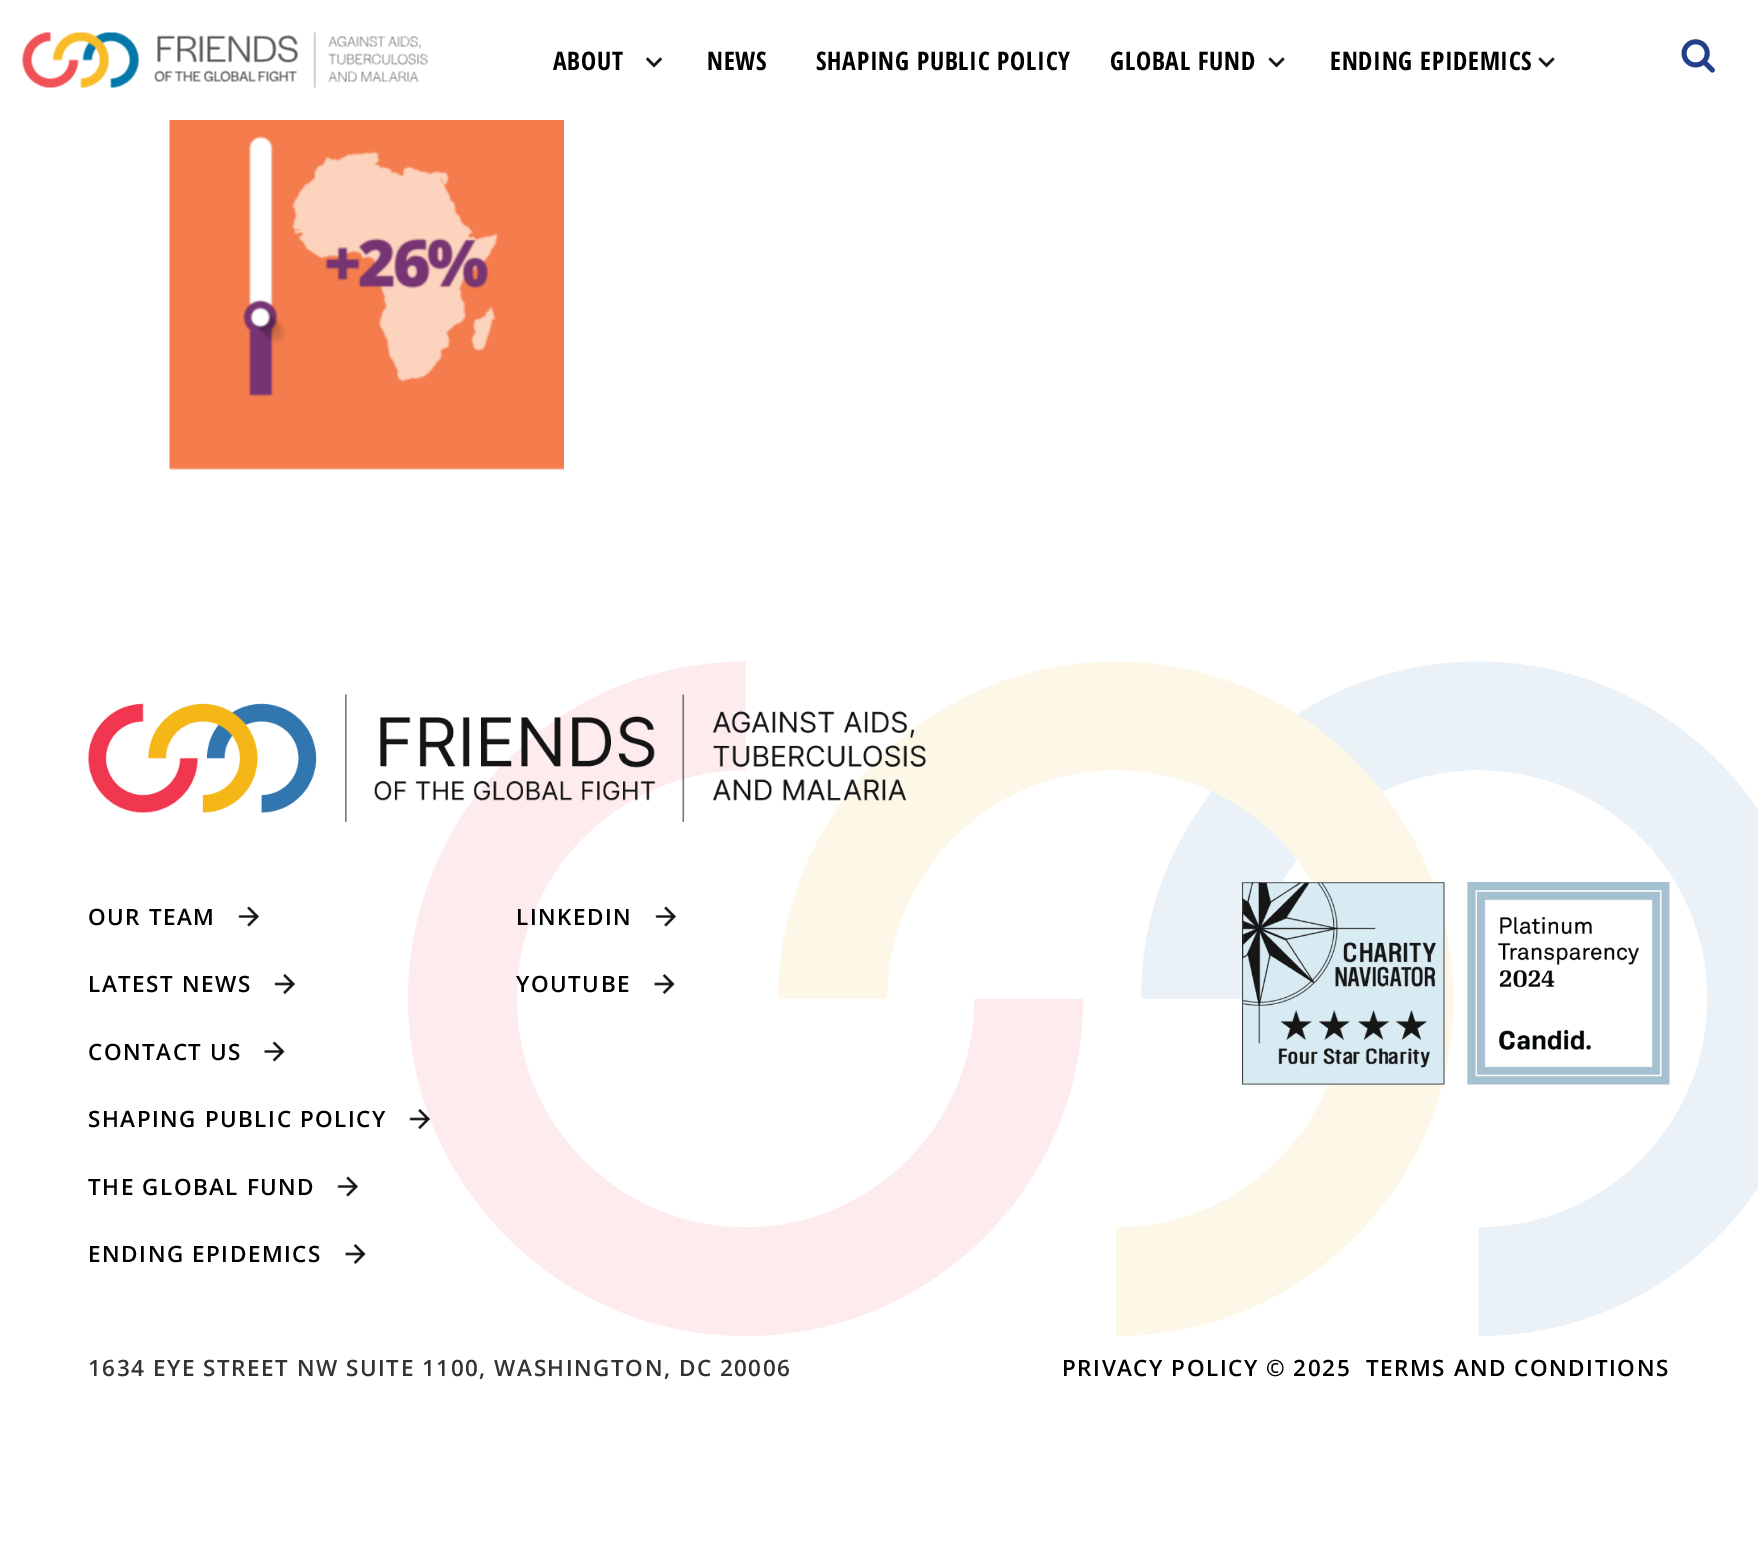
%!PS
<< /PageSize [1758 1555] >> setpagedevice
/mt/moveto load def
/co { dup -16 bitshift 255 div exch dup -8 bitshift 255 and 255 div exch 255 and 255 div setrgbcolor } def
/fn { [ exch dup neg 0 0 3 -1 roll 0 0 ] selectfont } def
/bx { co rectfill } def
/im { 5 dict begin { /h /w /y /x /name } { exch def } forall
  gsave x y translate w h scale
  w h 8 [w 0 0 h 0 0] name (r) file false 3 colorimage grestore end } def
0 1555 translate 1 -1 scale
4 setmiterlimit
0 0 1758 1555 16#FFFFFF bx
(media/1.raw) 22 32 406 56 im
(media/2.raw) 645 57 18 11 im
(media/3.raw) 1268 57 17 11 im
(media/3.raw) 1538 57 17 11 im
(media/4.raw) 1681 39 34 34 im
(media/5.raw) 169 120 395 350 im
(media/6.raw) 408 661 1350 675 im
(media/7.raw) 88 694 838 128 im
(media/8.raw) 238 906 22 21 im
(media/9.raw) 274 973 22 22 im
(media/10.raw) 264 1041 21 21 im
(media/11.raw) 409 1108 22 22 im
(media/12.raw) 337 1176 22 21 im
(media/13.raw) 345 1243 21 22 im
(media/8.raw) 655 906 22 21 im
(media/14.raw) 654 973 21 22 im
(media/15.raw) 1242 882 203 203 im
(media/16.raw) 1467 882 203 203 im
/OpenSansCondensed-Bold 25.5 fn
16#000000 co
553 70 mt .75 0 (ABOUT) ashow
707 70 mt .75 0 (NEWS) ashow
816 70 mt .75 0 (SHAPING PUBLIC POLICY) ashow
1110 70 mt .75 0 (GLOBAL FUND) ashow
1330 70 mt .75 0 (ENDING EPIDEMICS) ashow
/OpenSans-SemiBold 22.5 fn
88 925 mt 1.5 0 (OUR TEAM) ashow
88 992 mt 1.5 0 (LATEST NEWS) ashow
88 1060 mt 1.5 0 (CONTACT US) ashow
88 1127 mt 1.5 0 (SHAPING PUBLIC POLICY) ashow
88 1195 mt 1.5 0 (THE GLOBAL FUND) ashow
88 1262 mt 1.5 0 (ENDING EPIDEMICS) ashow
516 925 mt 1.5 0 (LINKEDIN) ashow
516 992 mt 1.5 0 (YOUTUBE) ashow
16#333333 co
88 1376 mt 1.5 0 (1634 EYE STREET NW SUITE 1100, WASHINGTON, DC 20006) ashow
16#000000 co
1062 1376 mt 1.5 0 (PRIVACY POLICY © 2025) ashow
1366 1376 mt 1.5 0 (TERMS AND CONDITIONS) ashow
showpage
